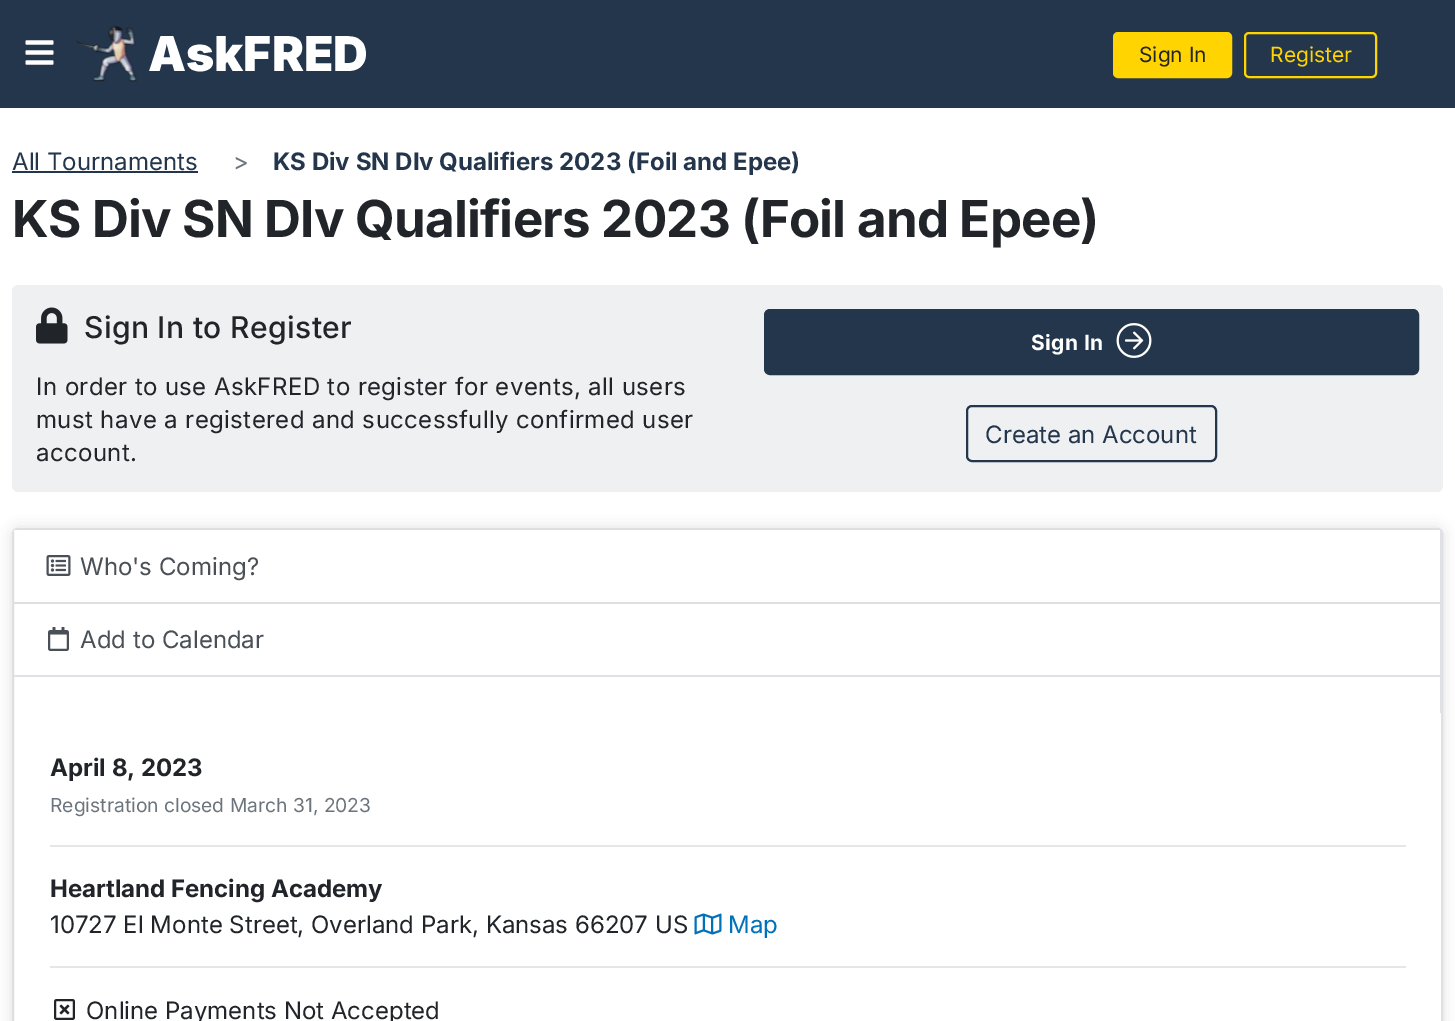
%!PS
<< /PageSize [1455 1021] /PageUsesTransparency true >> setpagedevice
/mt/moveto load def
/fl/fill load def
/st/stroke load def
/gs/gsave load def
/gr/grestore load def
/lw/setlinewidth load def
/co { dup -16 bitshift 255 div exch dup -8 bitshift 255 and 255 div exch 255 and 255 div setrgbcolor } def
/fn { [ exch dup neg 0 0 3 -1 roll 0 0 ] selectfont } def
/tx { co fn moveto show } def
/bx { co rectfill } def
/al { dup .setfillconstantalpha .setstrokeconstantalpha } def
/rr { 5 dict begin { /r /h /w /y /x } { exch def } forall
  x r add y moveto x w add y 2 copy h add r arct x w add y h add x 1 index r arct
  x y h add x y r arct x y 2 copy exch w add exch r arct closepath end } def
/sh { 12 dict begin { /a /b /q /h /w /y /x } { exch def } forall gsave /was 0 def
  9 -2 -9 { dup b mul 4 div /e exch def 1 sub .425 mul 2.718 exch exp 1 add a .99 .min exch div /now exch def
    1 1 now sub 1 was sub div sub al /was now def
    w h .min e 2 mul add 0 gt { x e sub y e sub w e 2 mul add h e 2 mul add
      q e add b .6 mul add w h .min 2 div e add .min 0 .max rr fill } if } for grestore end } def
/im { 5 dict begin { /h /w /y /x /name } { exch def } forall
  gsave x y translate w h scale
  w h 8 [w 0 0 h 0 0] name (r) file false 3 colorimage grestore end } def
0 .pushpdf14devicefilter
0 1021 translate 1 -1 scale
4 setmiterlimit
0 0 1455 1021 16#FFFFFF bx
0 0 1455 108 16#24364C bx
(media/1.raw) 25 40 29 25 im
(media/2.raw) 73 26 64 56 im
16#FFD400 co
1114 33 117 44 4 rr gs fl gr
2 lw
st
1245 33 131 44 4 rr st
12 171 186 2 16#24364C bx
16#EEF0F2 co
12 285 1431 207 6 rr fl
(media/3.raw) 36 307 32 37 im
16#24364C co
765 310 653 64 5 rr gs fl gr
st
(media/4.raw) 1116 323 36 35 im
967 406 249 55 5 rr st
16#CCCCCC co
15 531 1425 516 3 7.5 1 sh
16#FFFFFF co
13 529 1429 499 5 rr gs fl gr
16#DFDFDF co
st
1440 530 2 183 16#DEE2E6 bx
14 530 1426 3 16#FFFFFF bx
(media/5.raw) 46 555 25 21 im
14 602 1426 2 16#DFDFDF bx
14 675 1426 2 16#DEE2E6 bx
(media/6.raw) 48 627 21 24 im
50 845 1356 2 16#E6E6E6 bx
(media/7.raw) 694 913 28 22 im
50 966 1356 2 16#E6E6E6 bx
(media/8.raw) 54 999 21 21 im
(AskFRED) 148 71 /Inter-Black 48 16#FFFFFF tx
(Sign In) 1139 62 /Inter-Regular 21 16#212529 tx
(Register) 1270 62 /Inter-Regular 21 16#FFD400 tx
(All Tournaments) 12 170 /Inter-Regular 24 16#24364C tx
(>) 233 170 /Inter-Regular 24 16#6C757D tx
(KS Div SN DIv Qualifiers 2023 \(Foil and Epee\)) 273 170 /Inter-Bold 24 16#24364C tx
/Inter-Bold 51 fn
16#212529 co
12 237 mt -.75 0 (KS Div SN DIv Qualifiers 2023 \(Foil and Epee\)) ashow
/Inter-Medium 30 fn
84 338 mt .38 0 (Sign In to Register) ashow
/Inter-Regular 24 fn
36 395 mt .38 0 (In order to use AskFRED to register for events, all users) ashow
36 428 mt .38 0 (must have a registered and successfully confirmed user) ashow
36 461 mt .38 0 (account.) ashow
/Inter-Bold 21 fn
16#FFFFFF co
1031 350 mt .38 0 (Sign In) ashow
(Create an Account) 985 443 /Inter-Regular 24 16#24364C tx
(Who's Coming?) 80 575 /Inter-Regular 24 16#495057 tx
(Add to Calendar) 80 648 /Inter-Regular 24 16#495057 tx
(April 8, 2023) 50 776 /Inter-Bold 24 16#212529 tx
(Registration closed March 31, 2023) 50 812 /Inter-Regular 19.25 16#6C757D tx
(Heartland Fencing Academy) 50 897 /Inter-Bold 24 16#212529 tx
(10727 El Monte Street, Overland Park, Kansas 66207 US) 50 933 /Inter-Regular 24 16#212529 tx
(Map) 728 933 /Inter-Regular 24 16#0072B9 tx
(Online Payments Not Accepted) 86 1019 /Inter-Regular 24 16#212529 tx
.poppdf14devicefilter showpage
